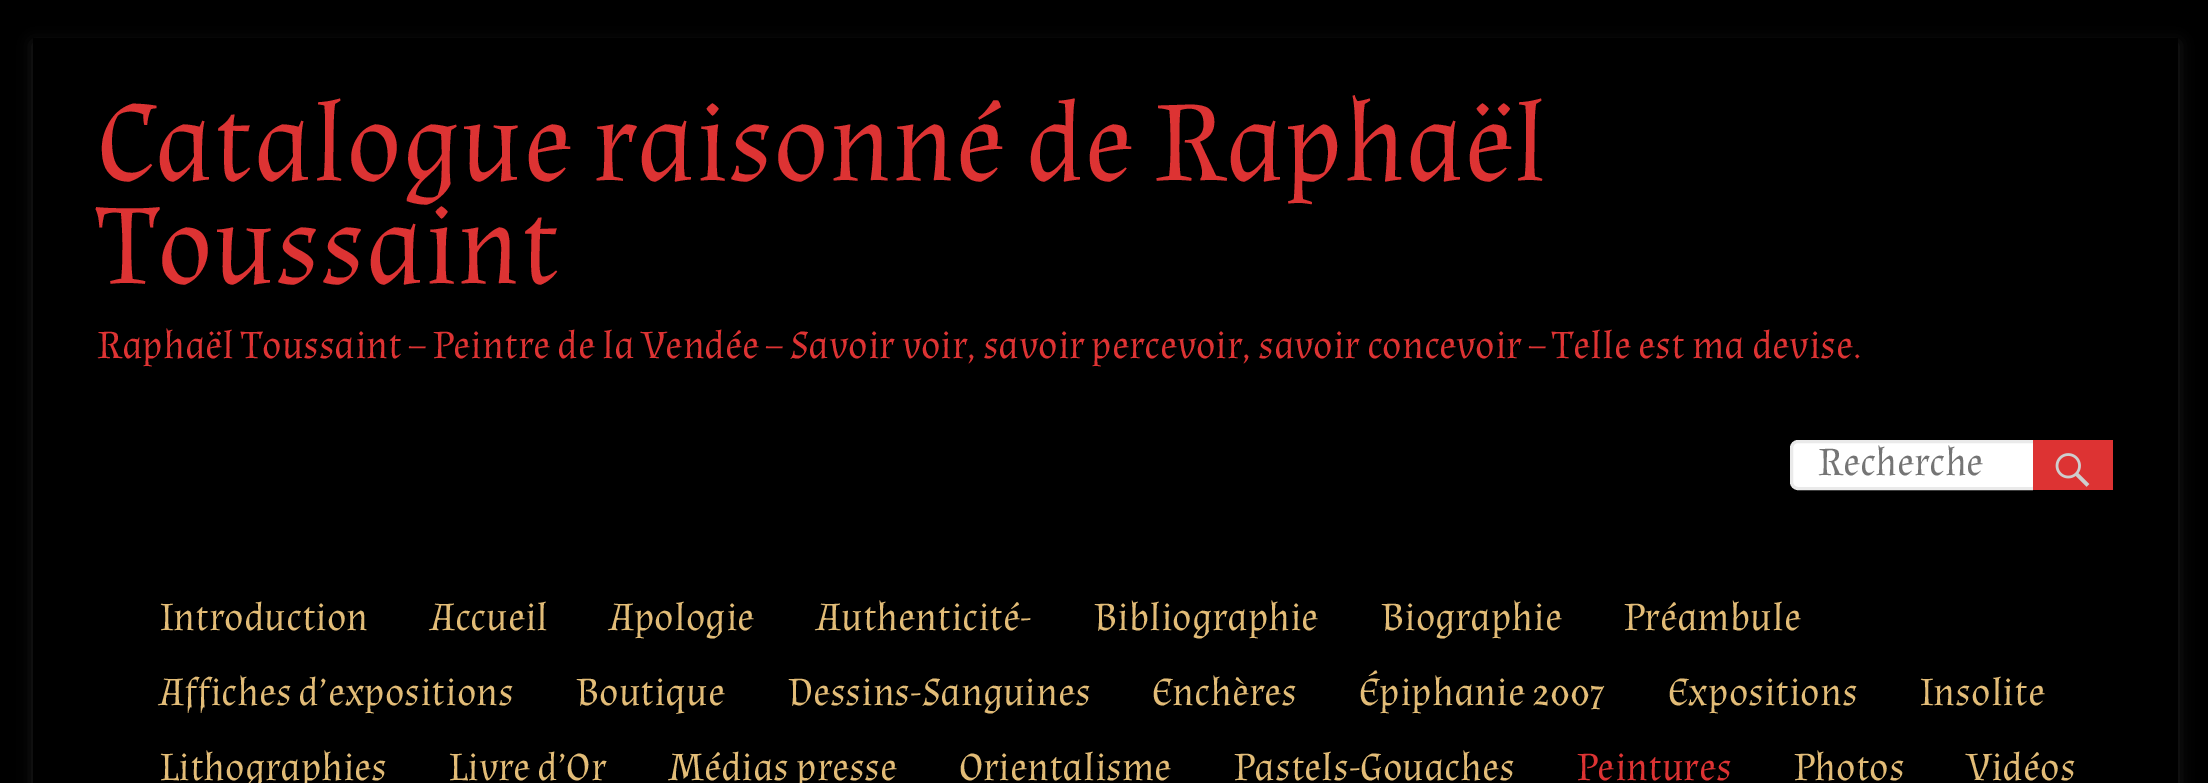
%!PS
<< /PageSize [2208 783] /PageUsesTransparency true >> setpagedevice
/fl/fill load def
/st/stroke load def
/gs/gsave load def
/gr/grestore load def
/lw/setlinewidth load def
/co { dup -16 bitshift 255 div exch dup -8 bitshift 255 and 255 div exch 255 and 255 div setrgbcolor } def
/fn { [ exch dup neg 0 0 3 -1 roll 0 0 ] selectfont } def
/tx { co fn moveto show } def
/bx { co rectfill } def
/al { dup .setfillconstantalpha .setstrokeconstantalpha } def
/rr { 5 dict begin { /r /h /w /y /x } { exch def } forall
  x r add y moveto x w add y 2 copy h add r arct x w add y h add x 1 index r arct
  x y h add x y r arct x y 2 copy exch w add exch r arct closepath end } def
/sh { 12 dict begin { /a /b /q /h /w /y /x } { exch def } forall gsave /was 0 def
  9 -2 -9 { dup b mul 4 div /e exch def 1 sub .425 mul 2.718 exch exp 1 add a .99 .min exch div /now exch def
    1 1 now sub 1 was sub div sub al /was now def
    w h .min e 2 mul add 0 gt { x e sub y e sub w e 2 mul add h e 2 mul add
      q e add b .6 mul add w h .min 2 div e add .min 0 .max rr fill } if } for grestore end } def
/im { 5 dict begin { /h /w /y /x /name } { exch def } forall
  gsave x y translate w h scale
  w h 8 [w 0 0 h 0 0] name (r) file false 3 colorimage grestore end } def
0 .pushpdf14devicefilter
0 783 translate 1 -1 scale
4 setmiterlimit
0 0 2208 783 16#000000 bx
16#646464 co
33 43 2145 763 0 7.5 .3 sh
33 38 2145 745 16#000000 bx
16#FFFFFF co
1791.5 441.5 247 47 6.5 rr gs fl gr
16#EAEAEA co
3 lw
st
2033 440 80 50 16#DD3333 bx
(media/1.raw) 2055 453 35 34 im
(Catalogue raisonné de Raphaël) 97 180 /Almendra-Regular 115 16#DD3333 tx
(Toussaint) 97 283 /Almendra-Regular 115 16#DD3333 tx
(Raphaël Toussaint – Peintre de la Vendée – Savoir voir, savoir percevoir, savoir concevoir – Telle est ma devise.) 97 358 /Almendra-Regular 40 16#DD3333 tx
(Recherche) 1818 475 /Almendra-Regular 40 16#757575 tx
(Introduction) 160 630 /Almendra-Regular 40 16#E2BC77 tx
(Accueil) 431 630 /Almendra-Regular 40 16#E2BC77 tx
(Apologie) 610 630 /Almendra-Regular 40 16#E2BC77 tx
(Authenticité-) 817 630 /Almendra-Regular 40 16#E2BC77 tx
(Bibliographie) 1094 630 /Almendra-Regular 40 16#E2BC77 tx
(Biographie) 1381 630 /Almendra-Regular 40 16#E2BC77 tx
(Préambule) 1624 630 /Almendra-Regular 40 16#E2BC77 tx
(Affiches d’expositions) 160 705 /Almendra-Regular 40 16#E2BC77 tx
(Boutique) 576 705 /Almendra-Regular 40 16#E2BC77 tx
(Dessins-Sanguines) 788 705 /Almendra-Regular 40 16#E2BC77 tx
(Enchères) 1152 705 /Almendra-Regular 40 16#E2BC77 tx
(Épiphanie 2007) 1359 705 /Almendra-Regular 40 16#E2BC77 tx
(Expositions) 1668 705 /Almendra-Regular 40 16#E2BC77 tx
(Insolite) 1920 705 /Almendra-Regular 40 16#E2BC77 tx
(Lithographies) 160 780 /Almendra-Regular 40 16#E2BC77 tx
(Livre d’Or) 449 780 /Almendra-Regular 40 16#E2BC77 tx
(Médias presse) 669 780 /Almendra-Regular 40 16#E2BC77 tx
(Orientalisme) 959 780 /Almendra-Regular 40 16#E2BC77 tx
(Pastels-Gouaches) 1234 780 /Almendra-Regular 40 16#E2BC77 tx
(Peintures) 1577 780 /Almendra-Regular 40 16#DD3333 tx
(Photos) 1794 780 /Almendra-Regular 40 16#E2BC77 tx
(Vidéos) 1967 780 /Almendra-Regular 40 16#E2BC77 tx
.poppdf14devicefilter showpage
